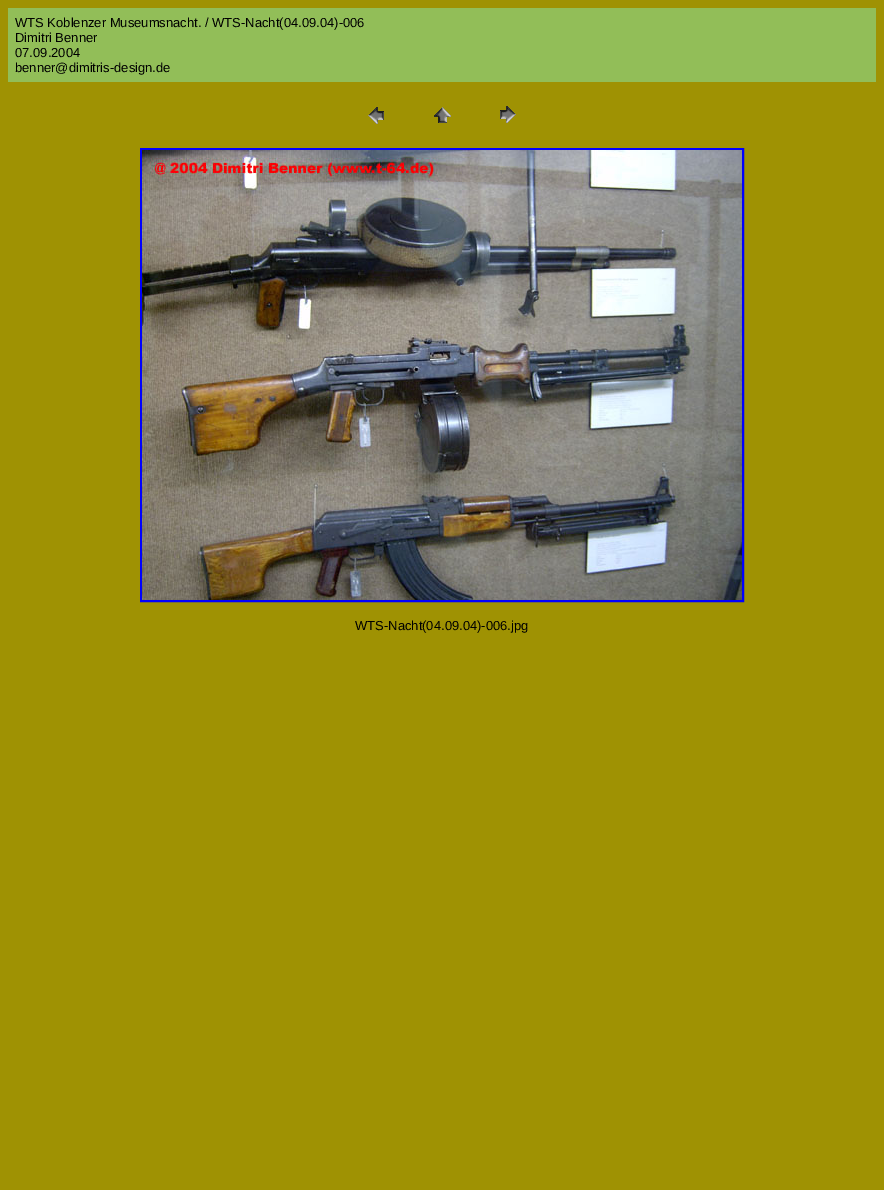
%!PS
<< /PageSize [884 1190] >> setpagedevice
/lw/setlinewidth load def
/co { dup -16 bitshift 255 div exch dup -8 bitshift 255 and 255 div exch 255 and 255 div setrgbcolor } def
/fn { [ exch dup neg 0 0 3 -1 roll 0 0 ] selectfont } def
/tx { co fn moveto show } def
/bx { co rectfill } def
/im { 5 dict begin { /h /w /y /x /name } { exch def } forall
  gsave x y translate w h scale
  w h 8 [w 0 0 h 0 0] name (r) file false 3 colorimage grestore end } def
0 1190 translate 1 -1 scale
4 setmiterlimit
0 0 884 1190 16#9F9203 bx
8 8 868 74 16#92BE58 bx
(media/1.raw) 368 107 16 17 im
(media/2.raw) 434 107 17 16 im
(media/3.raw) 500 106 16 17 im
16#0000FF co
2 lw
141 149 602 452 rectstroke
(media/4.raw) 142 150 600 450 im
(WTS Koblenzer Museumsnacht. / WTS-Nacht\(04.09.04\)-006) 15 27 /LiberationSans-Regular 13 16#000000 tx
(Dimitri Benner) 15 42 /LiberationSans-Regular 13 16#000000 tx
(07.09.2004) 15 57 /LiberationSans-Regular 13 16#000000 tx
(benner@dimitris-design.de) 15 72 /LiberationSans-Regular 13 16#000000 tx
(WTS-Nacht\(04.09.04\)-006.jpg) 355 630 /LiberationSans-Regular 13 16#000000 tx
showpage
